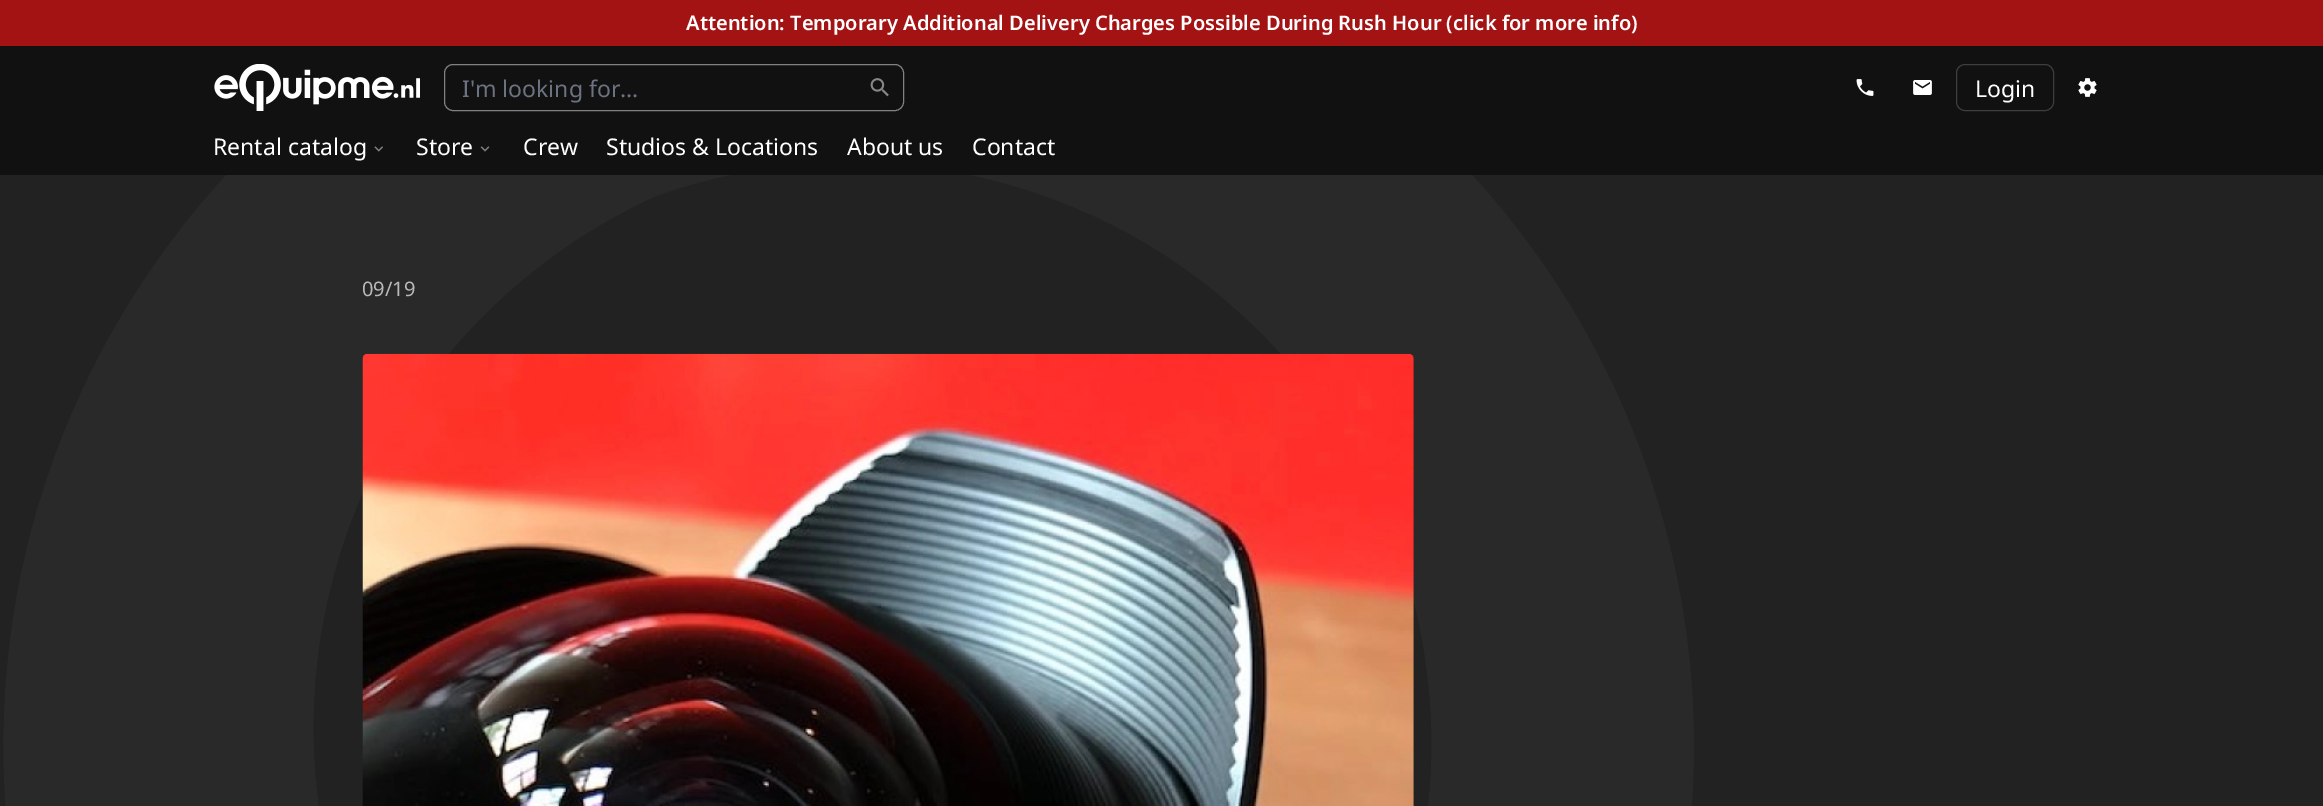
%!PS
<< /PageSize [2323 806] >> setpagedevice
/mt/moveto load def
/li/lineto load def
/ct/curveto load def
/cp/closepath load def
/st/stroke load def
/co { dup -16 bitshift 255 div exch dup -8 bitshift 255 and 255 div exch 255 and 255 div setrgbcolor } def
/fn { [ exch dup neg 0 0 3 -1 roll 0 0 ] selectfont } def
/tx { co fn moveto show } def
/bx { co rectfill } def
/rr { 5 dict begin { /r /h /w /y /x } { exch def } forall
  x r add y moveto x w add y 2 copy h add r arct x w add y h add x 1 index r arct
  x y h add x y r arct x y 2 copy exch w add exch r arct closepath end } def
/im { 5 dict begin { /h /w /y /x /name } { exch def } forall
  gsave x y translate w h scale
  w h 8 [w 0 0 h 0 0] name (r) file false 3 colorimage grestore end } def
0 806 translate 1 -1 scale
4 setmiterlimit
0 0 2323 806 16#222222 bx
16#292929 co
6 681 mt 21 479 110 289 254 146 ct 550 -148 1016 -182 1351 66 ct 1686 314 1791 769 1597 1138 ct 1398 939 li 1473 727 1420 492 1261 333 ct 1103 174 867 121 656 196 ct 379 322 245 639 348 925 ct 450 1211 755 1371 1049 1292 ct 1248 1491 li 976 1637 645 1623 387 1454 ct 128 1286 -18 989 6 681 ct cp 851 544 mt 652 743 li 1543 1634 li 1742 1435 li cp eofill
0 46 2323 129 16#111111 bx
0 0 2323 46 16#A41313 bx
(media/1.raw) 214 64 206 47 im
16#818181 co
444.5 64.5 459 46 8.5 rr st
(media/2.raw) 870 78 19 19 im
(media/3.raw) 1856 79 18 17 im
(media/4.raw) 1913 80 19 15 im
16#3E3E3E co
1956.5 64.5 97 46 8.5 rr st
(media/5.raw) 2078 78 19 19 im
(media/6.raw) 374 146 9 6 im
(media/7.raw) 480 146 10 6 im
(media/8.raw) 362 353 1052 453 im
(Attention: Temporary Additional Delivery Charges Possible During Rush Hour \(click for more info\)) 686 30 /NotoSans-SemiBold 20.1 16#FFFFFF tx
(I'm looking for...) 462 97 /NotoSans-Regular 23 16#6B7280 tx
(Login) 1975 97 /NotoSans-Regular 23 16#FFFFFF tx
(Rental catalog) 213 155 /NotoSans-Regular 23 16#FFFFFF tx
(Store) 416 155 /NotoSans-Regular 23 16#FFFFFF tx
(Crew) 523 155 /NotoSans-Regular 23 16#FFFFFF tx
(Studios & Locations) 606 155 /NotoSans-Regular 23 16#FFFFFF tx
(About us) 847 155 /NotoSans-Regular 23 16#FFFFFF tx
(Contact) 972 155 /NotoSans-Regular 23 16#FFFFFF tx
(09/19) 362 296 /NotoSans-Regular 20.1 16#B9B9BA tx
showpage
